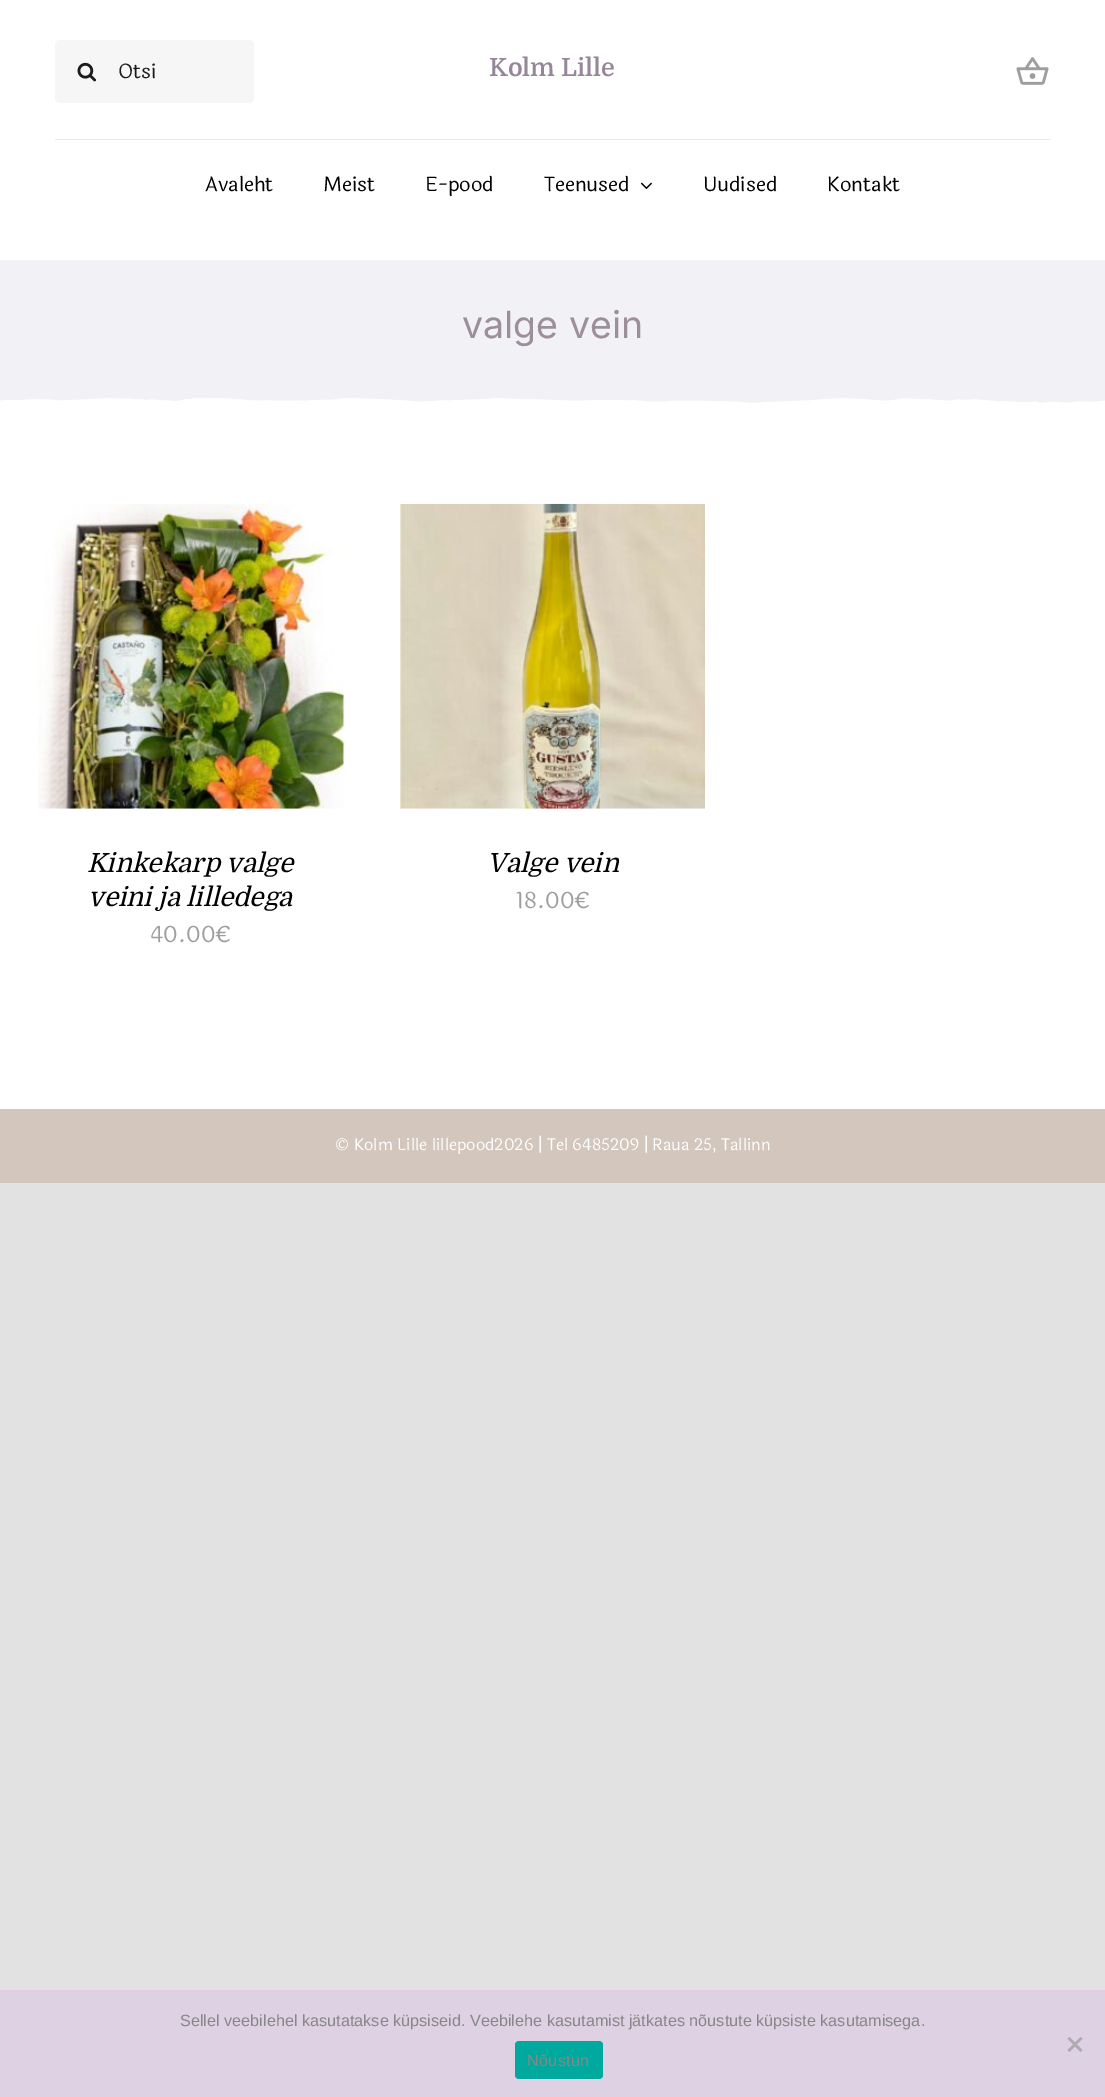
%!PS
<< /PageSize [1105 2097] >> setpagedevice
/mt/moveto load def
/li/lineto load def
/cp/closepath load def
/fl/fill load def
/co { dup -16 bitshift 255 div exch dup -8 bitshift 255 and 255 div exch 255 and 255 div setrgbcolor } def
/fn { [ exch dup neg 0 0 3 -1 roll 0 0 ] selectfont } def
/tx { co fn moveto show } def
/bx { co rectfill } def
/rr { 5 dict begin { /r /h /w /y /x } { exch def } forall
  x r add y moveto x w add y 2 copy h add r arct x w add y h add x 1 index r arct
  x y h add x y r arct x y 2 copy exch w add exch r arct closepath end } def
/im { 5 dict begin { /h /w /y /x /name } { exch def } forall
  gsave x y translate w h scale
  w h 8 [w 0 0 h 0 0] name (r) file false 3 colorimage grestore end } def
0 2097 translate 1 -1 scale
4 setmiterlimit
0 0 1105 2097 16#E2E2E2 bx
0 0 1105 1109 16#FFFFFF bx
16#F6F6F6 co
55 40 199 63 5 rr fl
(media/1.raw) 77 62 19 20 im
(media/2.raw) 1016 57 33 28 im
55 139 995 1 16#E7E7E7 bx
(media/3.raw) 640 182 12 8 im
0 260 1105 131 16#F2F1F6 bx
(media/4.raw) 0 391 1105 12 im
(media/5.raw) 38 504 306 305 im
(media/6.raw) 400 503 305 306 im
0 1109 1105 74 16#D3C6BD bx
0 1990 1105 107 16#DED1E4 bx
16#AFA9B2 co
1080.5 2037 mt 1082.5 2038.5 li 1069.5 2052 li 1067.5 2050 li cp fl
1067.5 2038.5 mt 1069.5 2037 li 1082.5 2050 li 1080.5 2052 li cp fl
16#00A99D co
515 2041 88 38 4 rr fl
(Otsi) 118 78 /Laila-Regular 20 16#1B1B1B tx
(Kolm Lille) 489 76 /Domine-SemiBold 25 16#958798 tx
(Avaleht) 205 191 /Laila-Regular 20 16#000000 tx
(Meist) 323 191 /Laila-Regular 20 16#000000 tx
(E-pood) 425 191 /Laila-Regular 20 16#000000 tx
(Teenused) 544 191 /Laila-Regular 20 16#000000 tx
(Uudised) 703 191 /Laila-Regular 20 16#000000 tx
(Kontakt) 827 191 /Laila-Regular 20 16#000000 tx
(valge vein) 462 338 /Inter-Regular 37.5 16#9D8F9A tx
(Kinkekarp valge) 87 872 /Domine-Italic 26.25 16#000000 tx
(veini ja lilledega) 88 906 /Domine-Italic 26.25 16#000000 tx
(40.00€) 150 942 /Laila-Regular 22.5 16#9E9E9E tx
(Valge vein) 487 872 /Domine-Italic 26.25 16#000000 tx
(18.00€) 516 908 /Laila-Regular 22.5 16#9E9E9E tx
(© Kolm Lille lillepood2026 | Tel 6485209 | Raua 25, Tallinn) 335 1150 /Laila-Regular 16.25 16#FFFFFF tx
(Sellel veebilehel kasutatakse küpsiseid. Veebilehe kasutamist jätkates nõustute küpsiste kasutamisega.) 180 2026 /LiberationSans-Regular 16.25 16#878787 tx
527 2066 mt .25 0 (Nõustun) ashow
showpage
